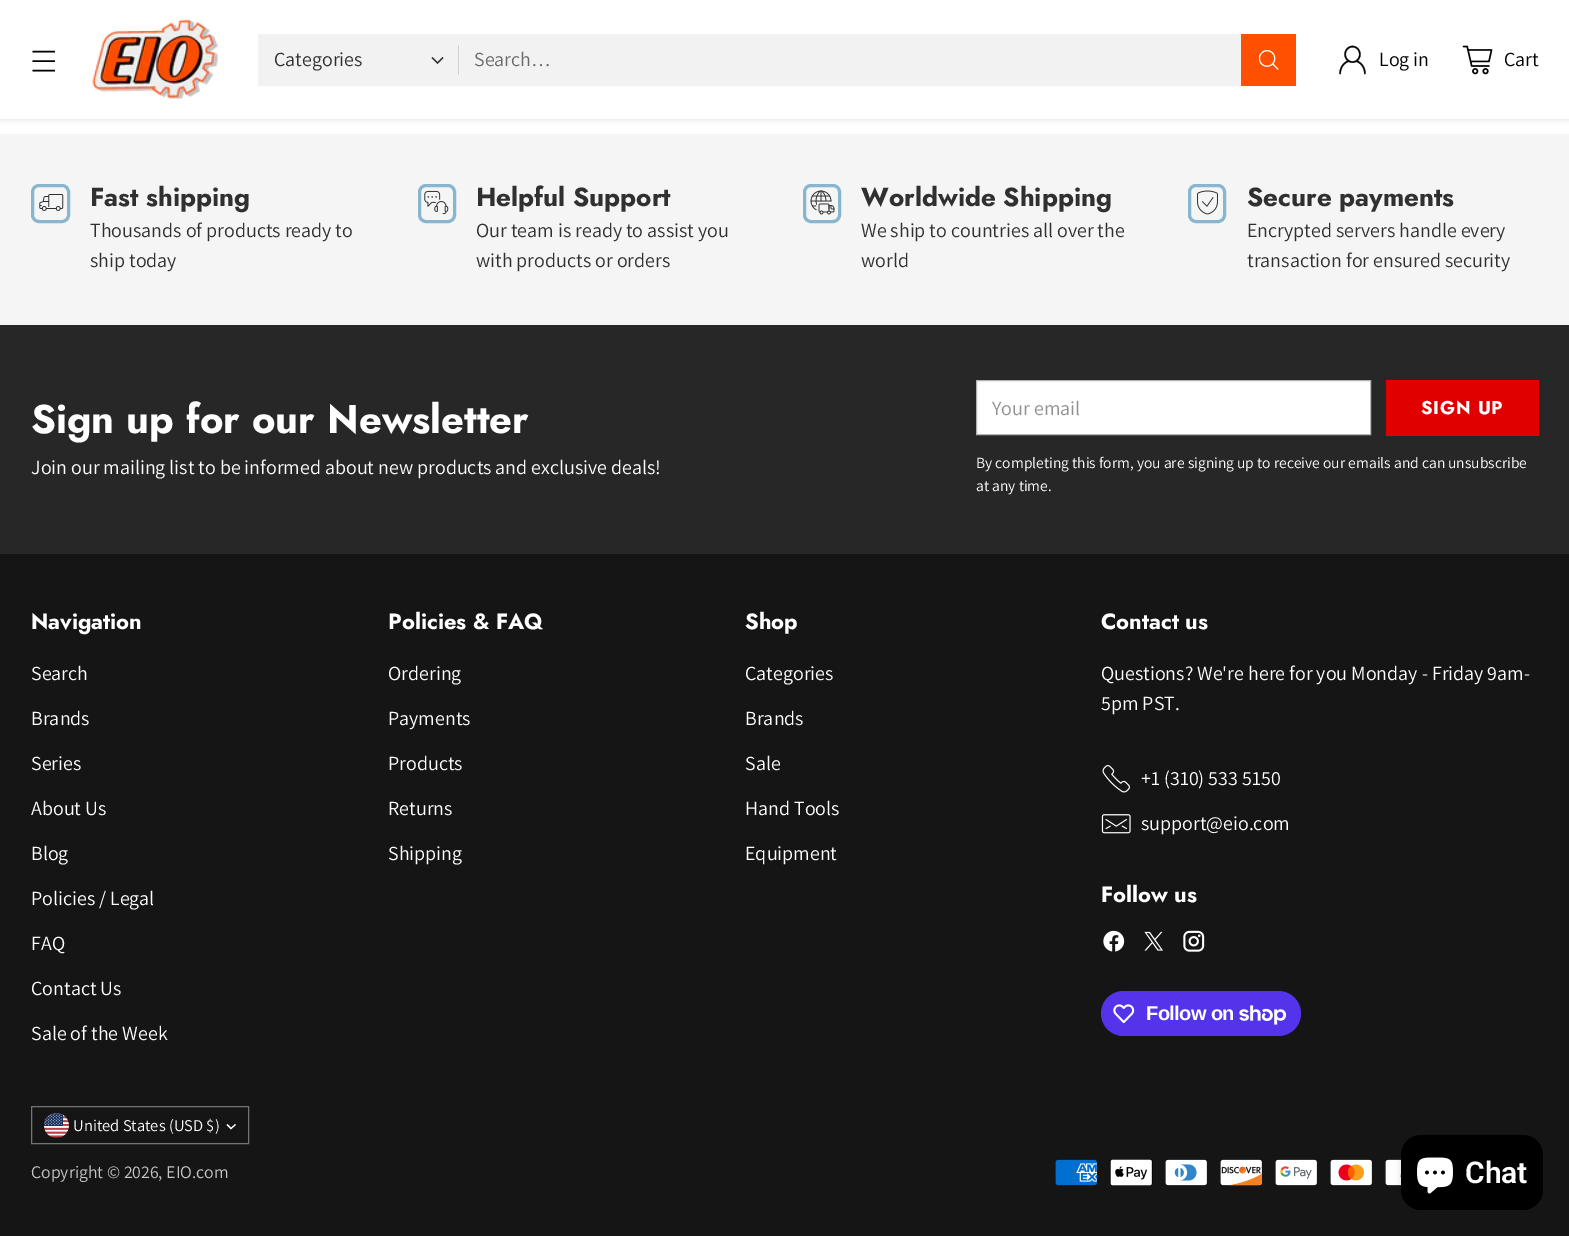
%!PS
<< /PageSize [1569 1236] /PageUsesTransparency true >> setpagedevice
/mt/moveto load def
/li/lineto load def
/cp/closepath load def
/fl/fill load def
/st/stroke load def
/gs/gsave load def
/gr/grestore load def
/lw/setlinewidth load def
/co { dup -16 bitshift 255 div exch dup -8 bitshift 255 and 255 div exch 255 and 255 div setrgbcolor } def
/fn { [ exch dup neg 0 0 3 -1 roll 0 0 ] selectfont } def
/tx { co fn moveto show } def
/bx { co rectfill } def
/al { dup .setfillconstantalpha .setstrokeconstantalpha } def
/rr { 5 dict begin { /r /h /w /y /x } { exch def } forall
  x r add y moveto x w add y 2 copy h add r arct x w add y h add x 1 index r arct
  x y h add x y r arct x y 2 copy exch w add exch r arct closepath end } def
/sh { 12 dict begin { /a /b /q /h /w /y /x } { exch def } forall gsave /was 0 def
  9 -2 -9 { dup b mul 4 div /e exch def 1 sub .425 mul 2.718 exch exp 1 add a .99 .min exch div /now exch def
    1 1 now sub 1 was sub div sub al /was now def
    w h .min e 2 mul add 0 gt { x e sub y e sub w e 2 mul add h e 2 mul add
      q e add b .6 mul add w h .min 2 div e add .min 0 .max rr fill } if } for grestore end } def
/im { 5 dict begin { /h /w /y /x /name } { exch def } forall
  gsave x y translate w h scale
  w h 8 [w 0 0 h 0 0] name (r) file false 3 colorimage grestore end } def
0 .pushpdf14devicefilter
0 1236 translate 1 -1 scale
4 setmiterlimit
0 0 1569 1236 16#FFFFFF bx
16#000000 co
0 0 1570 119 0 3 .15 sh
0 0 1569 119 16#FFFFFF bx
16#000000 co
1.6 lw
32.5 61 mt 55 61 li 32.5 51.5 mt 55 51.5 li 32.5 70.5 mt 55 70.5 li st
(media/1.raw) 92 19 126 80 im
16#F2F2F2 co
1 lw
258.5 34.5 1037 51 rectstroke
259 35 982 50 16#F2F2F2 bx
16#303030 co
1.4 lw
432 57.5 mt 437.5 63 li 443 57.5 li st
458 45 1 30 16#D2D2D2 bx
1241 34 55 52 16#FF5000 bx
(media/2.raw) 1259 50 20 20 im
(media/3.raw) 1339 45 27 30 im
(media/4.raw) 1462 45 31 30 im
0 134 1569 191 16#F5F5F5 bx
16#88B6CE co
3 lw
32.5 185.5 36 36 6.5 rr st
(media/5.raw) 39 194 25 17 im
419.5 185.5 35 36 6.5 rr st
(media/6.raw) 424 190 25 25 im
804.5 185.5 35 36 6.5 rr st
(media/7.raw) 810 190 25 25 im
1189.5 185.5 35 36 6.5 rr st
(media/8.raw) 1197 190 21 25 im
0 325 1569 229 16#272727 bx
16#FFFFFF co
976.5 380.5 mt 1370.5 380.5 li 1370.5 434.5 li 976.5 434.5 li cp gs fl gr
16#B4B4B4 co
1 lw
st
1386 380 153 56 16#E10000 bx
0 554 1569 682 16#151515 bx
(media/9.raw) 1102 765 28 28 im
(media/10.raw) 1101 814 30 20 im
(media/11.raw) 1103 930 22 22 im
(media/12.raw) 1144 931 19 20 im
(media/13.raw) 1183 930 22 22 im
16#5433EB co
1101 991 200 45 22.5 rr fl
(media/14.raw) 1113 1004 22 20 im
(media/15.raw) 1239 1005 47 20 im
16#737373 co
31.5 1106.5 217 37 rectstroke
(media/16.raw) 44 1113 25 25 im
16#FFFFFF co
1.1 lw
227 1124.5 mt 231 1128.5 li 235.5 1124.5 li st
(media/17.raw) 1055 1159 42 27 im
(media/18.raw) 1109 1159 44 27 im
(media/19.raw) 1165 1159 42 27 im
(media/20.raw) 1220 1159 42 27 im
(media/21.raw) 1275 1159 42 27 im
(media/22.raw) 1330 1159 42 27 im
(media/23.raw) 1385 1159 16 27 im
16#000000 co
1401 1135 142 75 20 3 .15 sh
1401 1135 142 75 20 rr fl
(media/24.raw) 1417 1157 36 37 im
(Categories) 274 66 /Assistant-Regular 20 16#303030 tx
(Search…) 474 66 /Assistant-Regular 20 16#6A6A6A tx
(Log in) 1379 66 /Assistant-Regular 20 16#000000 tx
(Cart) 1504 66 /Assistant-Regular 20 16#000000 tx
(Fast shipping) 90 206 /Jost-Bold 26 16#303030 tx
(Thousands of products ready to) 90 237 /Assistant-Regular 20 16#303030 tx
(ship today) 90 267 /Assistant-Regular 20 16#303030 tx
(Helpful Support) 476 206 /Jost-Bold 26 16#303030 tx
(Our team is ready to assist you) 476 237 /Assistant-Regular 20 16#303030 tx
(with products or orders) 476 267 /Assistant-Regular 20 16#303030 tx
(Worldwide Shipping) 861 206 /Jost-Bold 26 16#303030 tx
(We ship to countries all over the) 861 237 /Assistant-Regular 20 16#303030 tx
(world) 861 267 /Assistant-Regular 20 16#303030 tx
(Secure payments) 1247 206 /Jost-Bold 26 16#303030 tx
(Encrypted servers handle every) 1247 237 /Assistant-Regular 20 16#303030 tx
(transaction for ensured security) 1247 267 /Assistant-Regular 20 16#303030 tx
(Sign up for our Newsletter) 31 433 /Jost-Bold 40 16#FFFFFF tx
(Join our mailing list to be informed about new products and exclusive deals!) 31 474 /Assistant-Regular 20 16#FFFFFF tx
(Your email) 992 415 /Assistant-Regular 20 16#8F8F8F tx
/Jost-Bold 18.5 fn
16#FFFFFF co
1421 414 mt .75 0 (SIGN UP) ashow
(By completing this form, you are signing up to receive our emails and can unsubscribe) 976 468 /Assistant-Regular 15.55 16#FFFFFF tx
(at any time.) 976 491 /Assistant-Regular 15.55 16#FFFFFF tx
(Navigation) 31 629 /Jost-Bold 22 16#FFFFFF tx
(Search) 31 680 /Assistant-Regular 20 16#FFFFFF tx
(Brands) 31 725 /Assistant-Regular 20 16#FFFFFF tx
(Series) 31 770 /Assistant-Regular 20 16#FFFFFF tx
(About Us) 31 815 /Assistant-Regular 20 16#FFFFFF tx
(Blog) 31 860 /Assistant-Regular 20 16#FFFFFF tx
(Policies / Legal) 31 905 /Assistant-Regular 20 16#FFFFFF tx
(FAQ) 31 950 /Assistant-Regular 20 16#FFFFFF tx
(Contact Us) 31 995 /Assistant-Regular 20 16#FFFFFF tx
(Sale of the Week) 31 1040 /Assistant-Regular 20 16#FFFFFF tx
(Policies & FAQ) 388 629 /Jost-Bold 22 16#FFFFFF tx
(Ordering) 388 680 /Assistant-Regular 20 16#FFFFFF tx
(Payments) 388 725 /Assistant-Regular 20 16#FFFFFF tx
(Products) 388 770 /Assistant-Regular 20 16#FFFFFF tx
(Returns) 388 815 /Assistant-Regular 20 16#FFFFFF tx
(Shipping) 388 860 /Assistant-Regular 20 16#FFFFFF tx
(Shop) 745 629 /Jost-Bold 22 16#FFFFFF tx
(Categories) 745 680 /Assistant-Regular 20 16#FFFFFF tx
(Brands) 745 725 /Assistant-Regular 20 16#FFFFFF tx
(Sale) 745 770 /Assistant-Regular 20 16#FFFFFF tx
(Hand Tools) 745 815 /Assistant-Regular 20 16#FFFFFF tx
(Equipment) 745 860 /Assistant-Regular 20 16#FFFFFF tx
(Contact us) 1101 629 /Jost-Bold 22 16#FFFFFF tx
(Questions? We're here for you Monday - Friday 9am-) 1101 680 /Assistant-Regular 20 16#FFFFFF tx
(5pm PST.) 1101 710 /Assistant-Regular 20 16#FFFFFF tx
(+1 \(310\) 533 5150) 1141 785 /Assistant-Regular 20 16#FFFFFF tx
(support@eio.com) 1141 830 /Assistant-Regular 20 16#FFFFFF tx
(Follow us) 1101 902 /Jost-Bold 22 16#FFFFFF tx
/LiberationSans-Bold 20 fn
1146 1020 mt -.6 0 (Follow on) ashow
(United States \(USD $\)) 73 1131 /Assistant-Regular 16.5 16#FFFFFF tx
(Copyright © 2026, EIO.com) 31 1178 /Assistant-Regular 17.75 16#C5C5C5 tx
(Chat) 1465 1183 /Roboto-SemiBold 30 16#FFFFFF tx
.poppdf14devicefilter showpage
